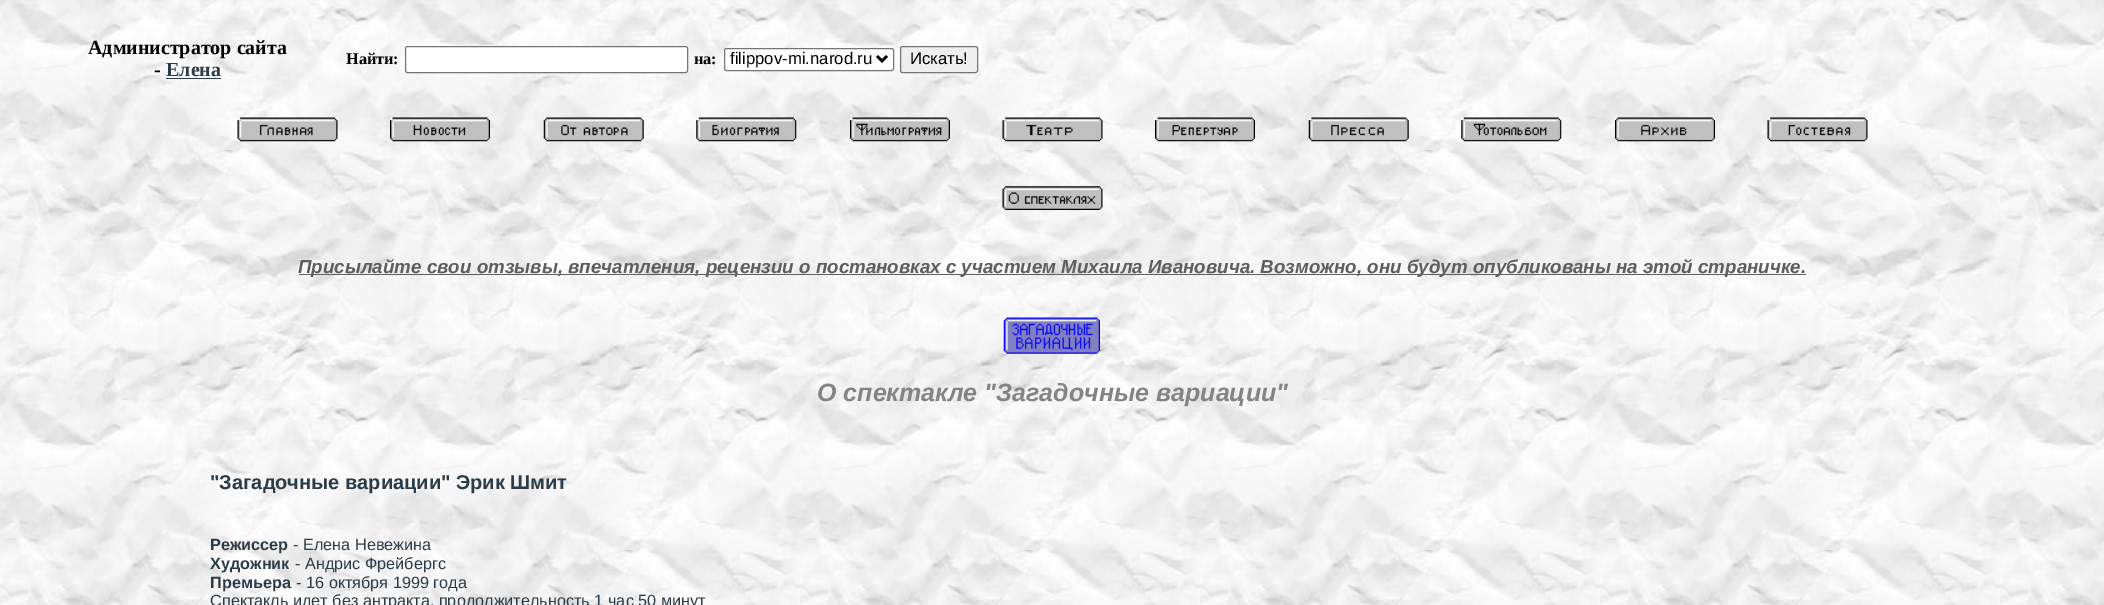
%!PS
<< /PageSize [2104 605] >> setpagedevice
/mt/moveto load def
/li/lineto load def
/fl/fill load def
/st/stroke load def
/gs/gsave load def
/gr/grestore load def
/lw/setlinewidth load def
/co { dup -16 bitshift 255 div exch dup -8 bitshift 255 and 255 div exch 255 and 255 div setrgbcolor } def
/fn { [ exch dup neg 0 0 3 -1 roll 0 0 ] selectfont } def
/tx { co fn moveto show } def
/bx { co rectfill } def
/rr { 5 dict begin { /r /h /w /y /x } { exch def } forall
  x r add y moveto x w add y 2 copy h add r arct x w add y h add x 1 index r arct
  x y h add x y r arct x y 2 copy exch w add exch r arct closepath end } def
/im { 5 dict begin { /h /w /y /x /name } { exch def } forall
  gsave x y translate w h scale
  w h 8 [w 0 0 h 0 0] name (r) file false 3 colorimage grestore end } def
0 605 translate 1 -1 scale
4 setmiterlimit
0 0 2104 605 16#FFFFFF bx
(media/1.raw) 0 0 2104 605 im
166 78 55 1 16#2A3C48 bx
16#FFFFFF co
405.5 46.5 282 26 2 rr gs fl gr
16#767676 co
st
16#FFFFFF co
724.5 48.5 169 22 2 rr gs fl gr
16#767676 co
st
16#000000 co
2.5 lw
877 56 mt 882 61 li 887 56 li st
16#EFEFEF co
900.5 46.5 77 26 2 rr gs fl gr
16#767676 co
1 lw
st
(media/2.raw) 237 117 101 25 im
(media/3.raw) 390 117 100 25 im
(media/4.raw) 543 117 101 25 im
(media/5.raw) 696 117 101 25 im
(media/6.raw) 850 117 100 25 im
(media/7.raw) 1002 117 101 25 im
(media/8.raw) 1155 117 100 25 im
(media/9.raw) 1308 117 101 25 im
(media/10.raw) 1461 117 101 25 im
(media/11.raw) 1615 117 100 25 im
(media/12.raw) 1767 117 101 25 im
(media/13.raw) 1002 186 101 24 im
299 274 1507 1 16#5E5E5E bx
(media/14.raw) 1003 317 97 37 im
(Администратор сайта) 88 54 /LiberationSerif-Bold 20 16#000000 tx
(-) 154 76 /LiberationSerif-Bold 20 16#000000 tx
(Елена) 166 76 /LiberationSerif-Bold 20 16#2A3C48 tx
(Найти:) 346 64 /LiberationSerif-Bold 16.25 16#000000 tx
(на:) 694 64 /LiberationSerif-Bold 16.25 16#000000 tx
(filippov-mi.narod.ru) 730 64 /LiberationSans-Regular 16.75 16#000000 tx
(Искать!) 910 64 /LiberationSans-Regular 16.75 16#000000 tx
(Присылайте свои отзывы, впечатления, рецензии о постановках с участием Михаила Ивановича. Возможно, они будут опубликованы на этой страничке.) 298 273 /LiberationSans-BoldItalic 18.75 16#5E5E5E tx
(О спектакле "Загадочные вариации") 817 401 /LiberationSans-BoldItalic 25 16#848484 tx
("Загадочные вариации" Эрик Шмит) 210 489 /LiberationSans-Bold 20 16#2A3C48 tx
(Режиссер) 210 550 /LiberationSans-Bold 16.25 16#2A3C48 tx
(- Елена Невежина) 293 550 /LiberationSans-Regular 16.25 16#2A3C48 tx
(Художник) 210 569 /LiberationSans-Bold 16.25 16#2A3C48 tx
(- Андрис Фрейбергс) 295 569 /LiberationSans-Regular 16.25 16#2A3C48 tx
(Премьера) 210 588 /LiberationSans-Bold 16.25 16#2A3C48 tx
(- 16 октября 1999 года) 296 588 /LiberationSans-Regular 16.25 16#2A3C48 tx
(Спектакль идет без антракта, продолжительность 1 час 50 минут) 210 606 /LiberationSans-Regular 16.25 16#2A3C48 tx
showpage
